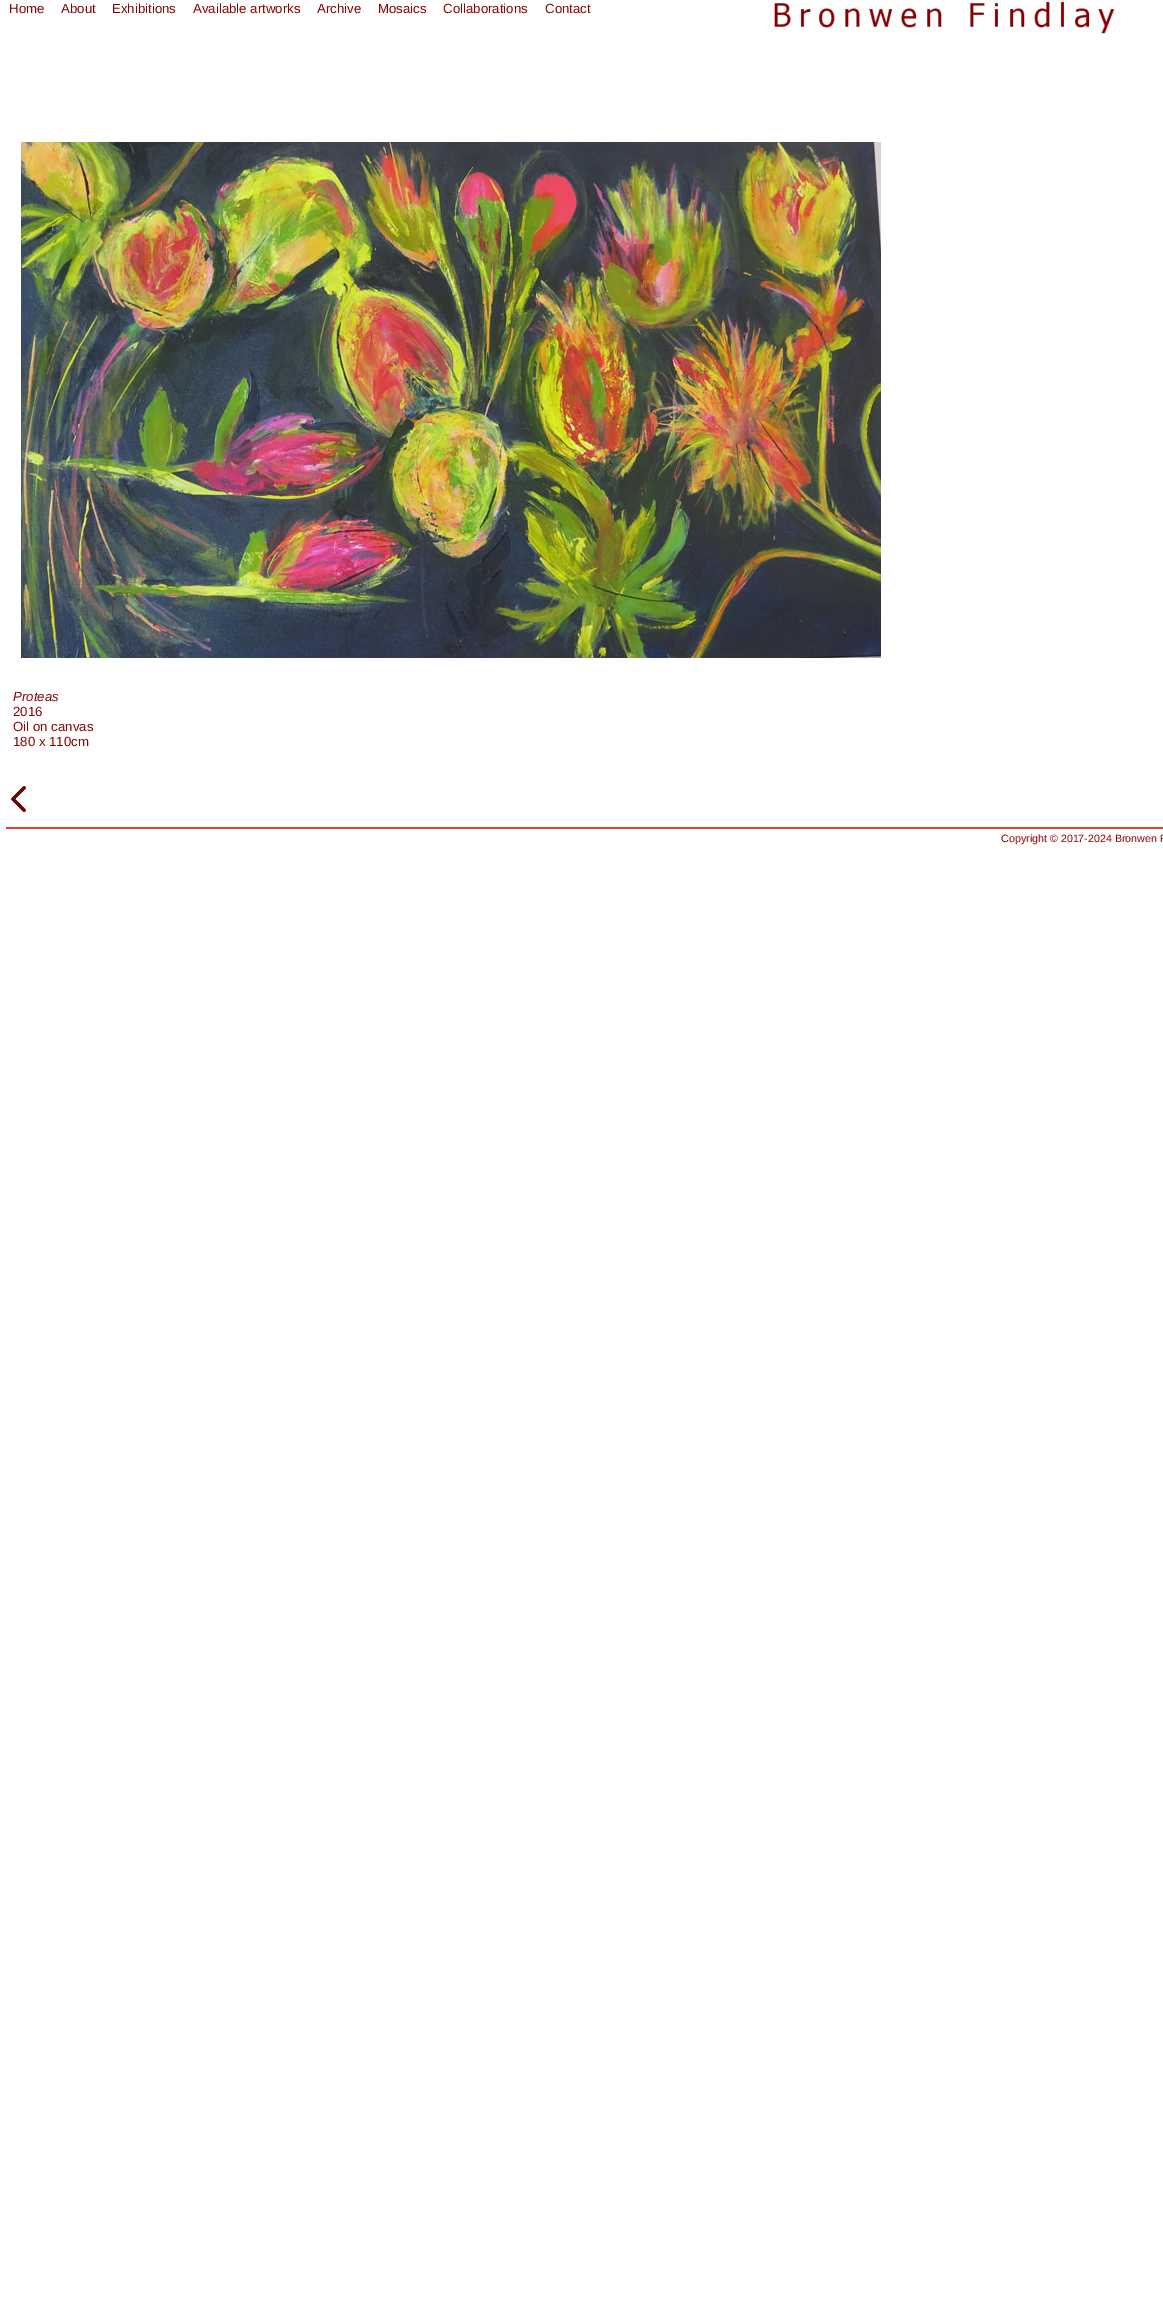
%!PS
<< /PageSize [1163 2299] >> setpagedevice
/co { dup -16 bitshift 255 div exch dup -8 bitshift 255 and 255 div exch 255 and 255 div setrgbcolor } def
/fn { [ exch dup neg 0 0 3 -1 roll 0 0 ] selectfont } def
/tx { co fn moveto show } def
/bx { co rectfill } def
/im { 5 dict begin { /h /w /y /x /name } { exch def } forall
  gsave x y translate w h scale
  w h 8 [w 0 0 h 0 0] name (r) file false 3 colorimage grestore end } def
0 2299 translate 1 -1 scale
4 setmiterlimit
0 0 1163 2299 16#FFFFFF bx
(media/1.raw) 774 1 341 33 im
(media/2.raw) 21 142 860 516 im
(media/3.raw) 11 786 15 26 im
6 827 1157 2 16#E34234 bx
(Home) 9 13 /LiberationSans-Regular 13.25 16#880402 tx
(About) 61 13 /LiberationSans-Regular 13.25 16#880402 tx
(Exhibitions) 112 13 /LiberationSans-Regular 13.25 16#880402 tx
(Available artworks) 193 13 /LiberationSans-Regular 13.25 16#880402 tx
(Archive) 317 13 /LiberationSans-Regular 13.25 16#880402 tx
(Mosaics) 378 13 /LiberationSans-Regular 13.25 16#880402 tx
(Collaborations) 443 13 /LiberationSans-Regular 13.25 16#880402 tx
(Contact) 545 13 /LiberationSans-Regular 13.25 16#880402 tx
(Proteas) 13 701 /LiberationSans-Italic 13.25 16#880402 tx
(2016) 13 716 /LiberationSans-Regular 13.25 16#880402 tx
(Oil on canvas) 13 731 /LiberationSans-Regular 13.25 16#880402 tx
(180 x 110cm) 13 746 /LiberationSans-Regular 13.25 16#880402 tx
(Copyright © 2017-2024 Bronwen F) 1001 842 /LiberationSans-Regular 10.7 16#880402 tx
showpage
